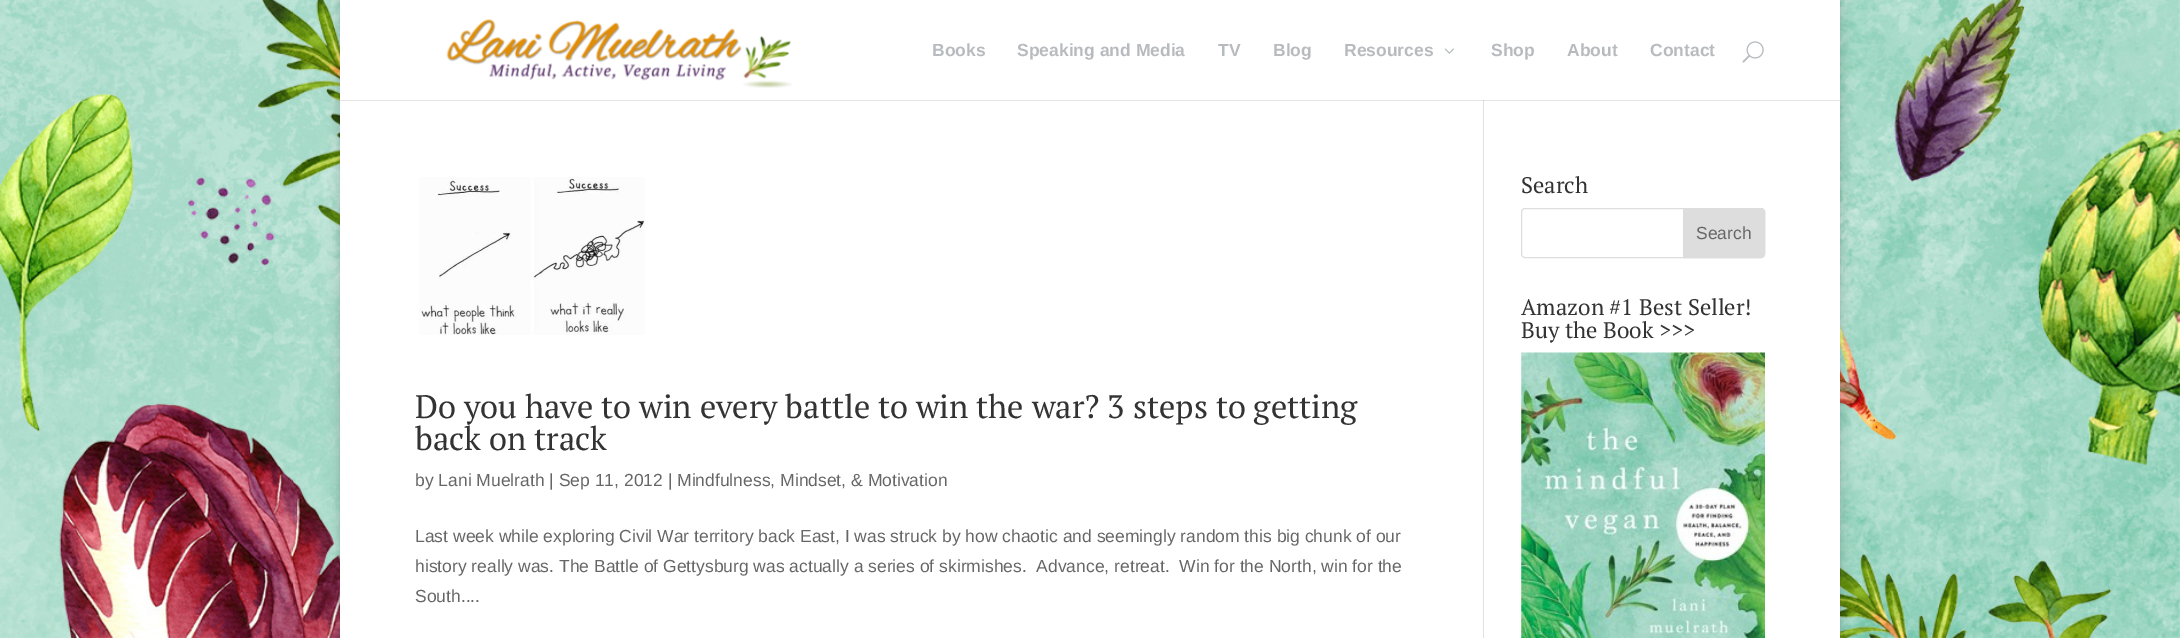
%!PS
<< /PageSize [2180 638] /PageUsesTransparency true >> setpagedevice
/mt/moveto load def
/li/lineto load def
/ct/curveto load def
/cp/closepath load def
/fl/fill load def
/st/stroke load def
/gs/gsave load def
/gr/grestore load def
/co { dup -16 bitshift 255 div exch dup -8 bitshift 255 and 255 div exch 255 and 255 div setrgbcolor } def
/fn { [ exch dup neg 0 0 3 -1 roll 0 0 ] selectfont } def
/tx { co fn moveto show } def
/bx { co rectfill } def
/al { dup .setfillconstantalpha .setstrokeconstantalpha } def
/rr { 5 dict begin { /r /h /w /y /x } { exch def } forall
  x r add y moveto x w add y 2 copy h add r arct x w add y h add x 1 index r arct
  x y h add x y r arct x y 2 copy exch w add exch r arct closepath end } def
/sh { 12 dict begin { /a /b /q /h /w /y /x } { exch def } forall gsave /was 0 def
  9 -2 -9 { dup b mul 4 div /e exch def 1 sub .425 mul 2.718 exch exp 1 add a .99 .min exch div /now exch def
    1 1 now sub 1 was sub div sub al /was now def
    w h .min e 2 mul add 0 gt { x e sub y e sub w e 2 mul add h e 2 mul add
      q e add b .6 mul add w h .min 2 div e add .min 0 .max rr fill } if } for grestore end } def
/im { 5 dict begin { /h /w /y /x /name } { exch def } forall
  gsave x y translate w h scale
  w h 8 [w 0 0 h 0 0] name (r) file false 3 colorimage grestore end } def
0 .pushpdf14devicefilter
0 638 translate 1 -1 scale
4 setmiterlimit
0 0 2180 638 16#FFFFFF bx
(media/1.raw) 0 0 2180 638 im
16#000000 co
340 0 1500 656 0 6 .2 sh
340 0 1500 638 16#FFFFFF bx
1483 100 1 538 16#E2E2E2 bx
0.1 al
340 100 1500 1 16#000000 bx
1 al
(media/2.raw) 446 19 346 69 im
(media/3.raw) 1444 48 10 6 im
(media/4.raw) 1742 41 22 22 im
16#DDDDDD co
1521.5 208.5 243 49 3.5 rr st
1683.5 208.5 mt 1761 208.5 li 1763 208.5 1764.5 210 1764.5 212 ct 1764.5 254 li 1764.5 256 1763 257.5 1761 257.5 ct 1683.5 257.5 li cp gs fl gr
st
(media/5.raw) 1521 352 244 286 im
(media/6.raw) 419 177 226 158 im
(Books) 932 56 /LiberationSans-Bold 17.5 16#B7BBBF tx
(Speaking and Media) 1017 56 /LiberationSans-Bold 17.5 16#B7BBBF tx
(TV) 1218 56 /LiberationSans-Bold 17.5 16#B7BBBF tx
(Blog) 1273 56 /LiberationSans-Bold 17.5 16#B7BBBF tx
(Resources) 1344 56 /LiberationSans-Bold 17.5 16#B7BBBF tx
(Shop) 1491 56 /LiberationSans-Bold 17.5 16#B7BBBF tx
(About) 1567 56 /LiberationSans-Bold 17.5 16#B7BBBF tx
(Contact) 1650 56 /LiberationSans-Bold 17.5 16#B7BBBF tx
(Search) 1521 193 /PTSerif-Regular 22.5 16#333333 tx
(Search) 1696 239 /LiberationSans-Regular 17.5 16#666666 tx
(Amazon #1 Best Seller!) 1521 315 /PTSerif-Regular 22.5 16#333333 tx
(Buy the Book >>>) 1521 338 /PTSerif-Regular 22.5 16#333333 tx
(Do you have to win every battle to win the war? 3 steps to getting) 415 418 /PTSerif-Regular 32.5 16#333333 tx
(back on track) 415 450 /PTSerif-Regular 32.5 16#333333 tx
(by Lani Muelrath | Sep 11, 2012 | Mindfulness, Mindset, & Motivation) 415 486 /LiberationSans-Regular 17.5 16#666666 tx
(Last week while exploring Civil War territory back East, I was struck by how chaotic and seemingly random this big chunk of our) 415 542 /LiberationSans-Regular 17.5 16#666666 tx
(history really was. The Battle of Gettysburg was actually a series of skirmishes.  Advance, retreat.  Win for the North, win for the) 415 572 /LiberationSans-Regular 17.5 16#666666 tx
(South....) 415 602 /LiberationSans-Regular 17.5 16#666666 tx
.poppdf14devicefilter showpage
